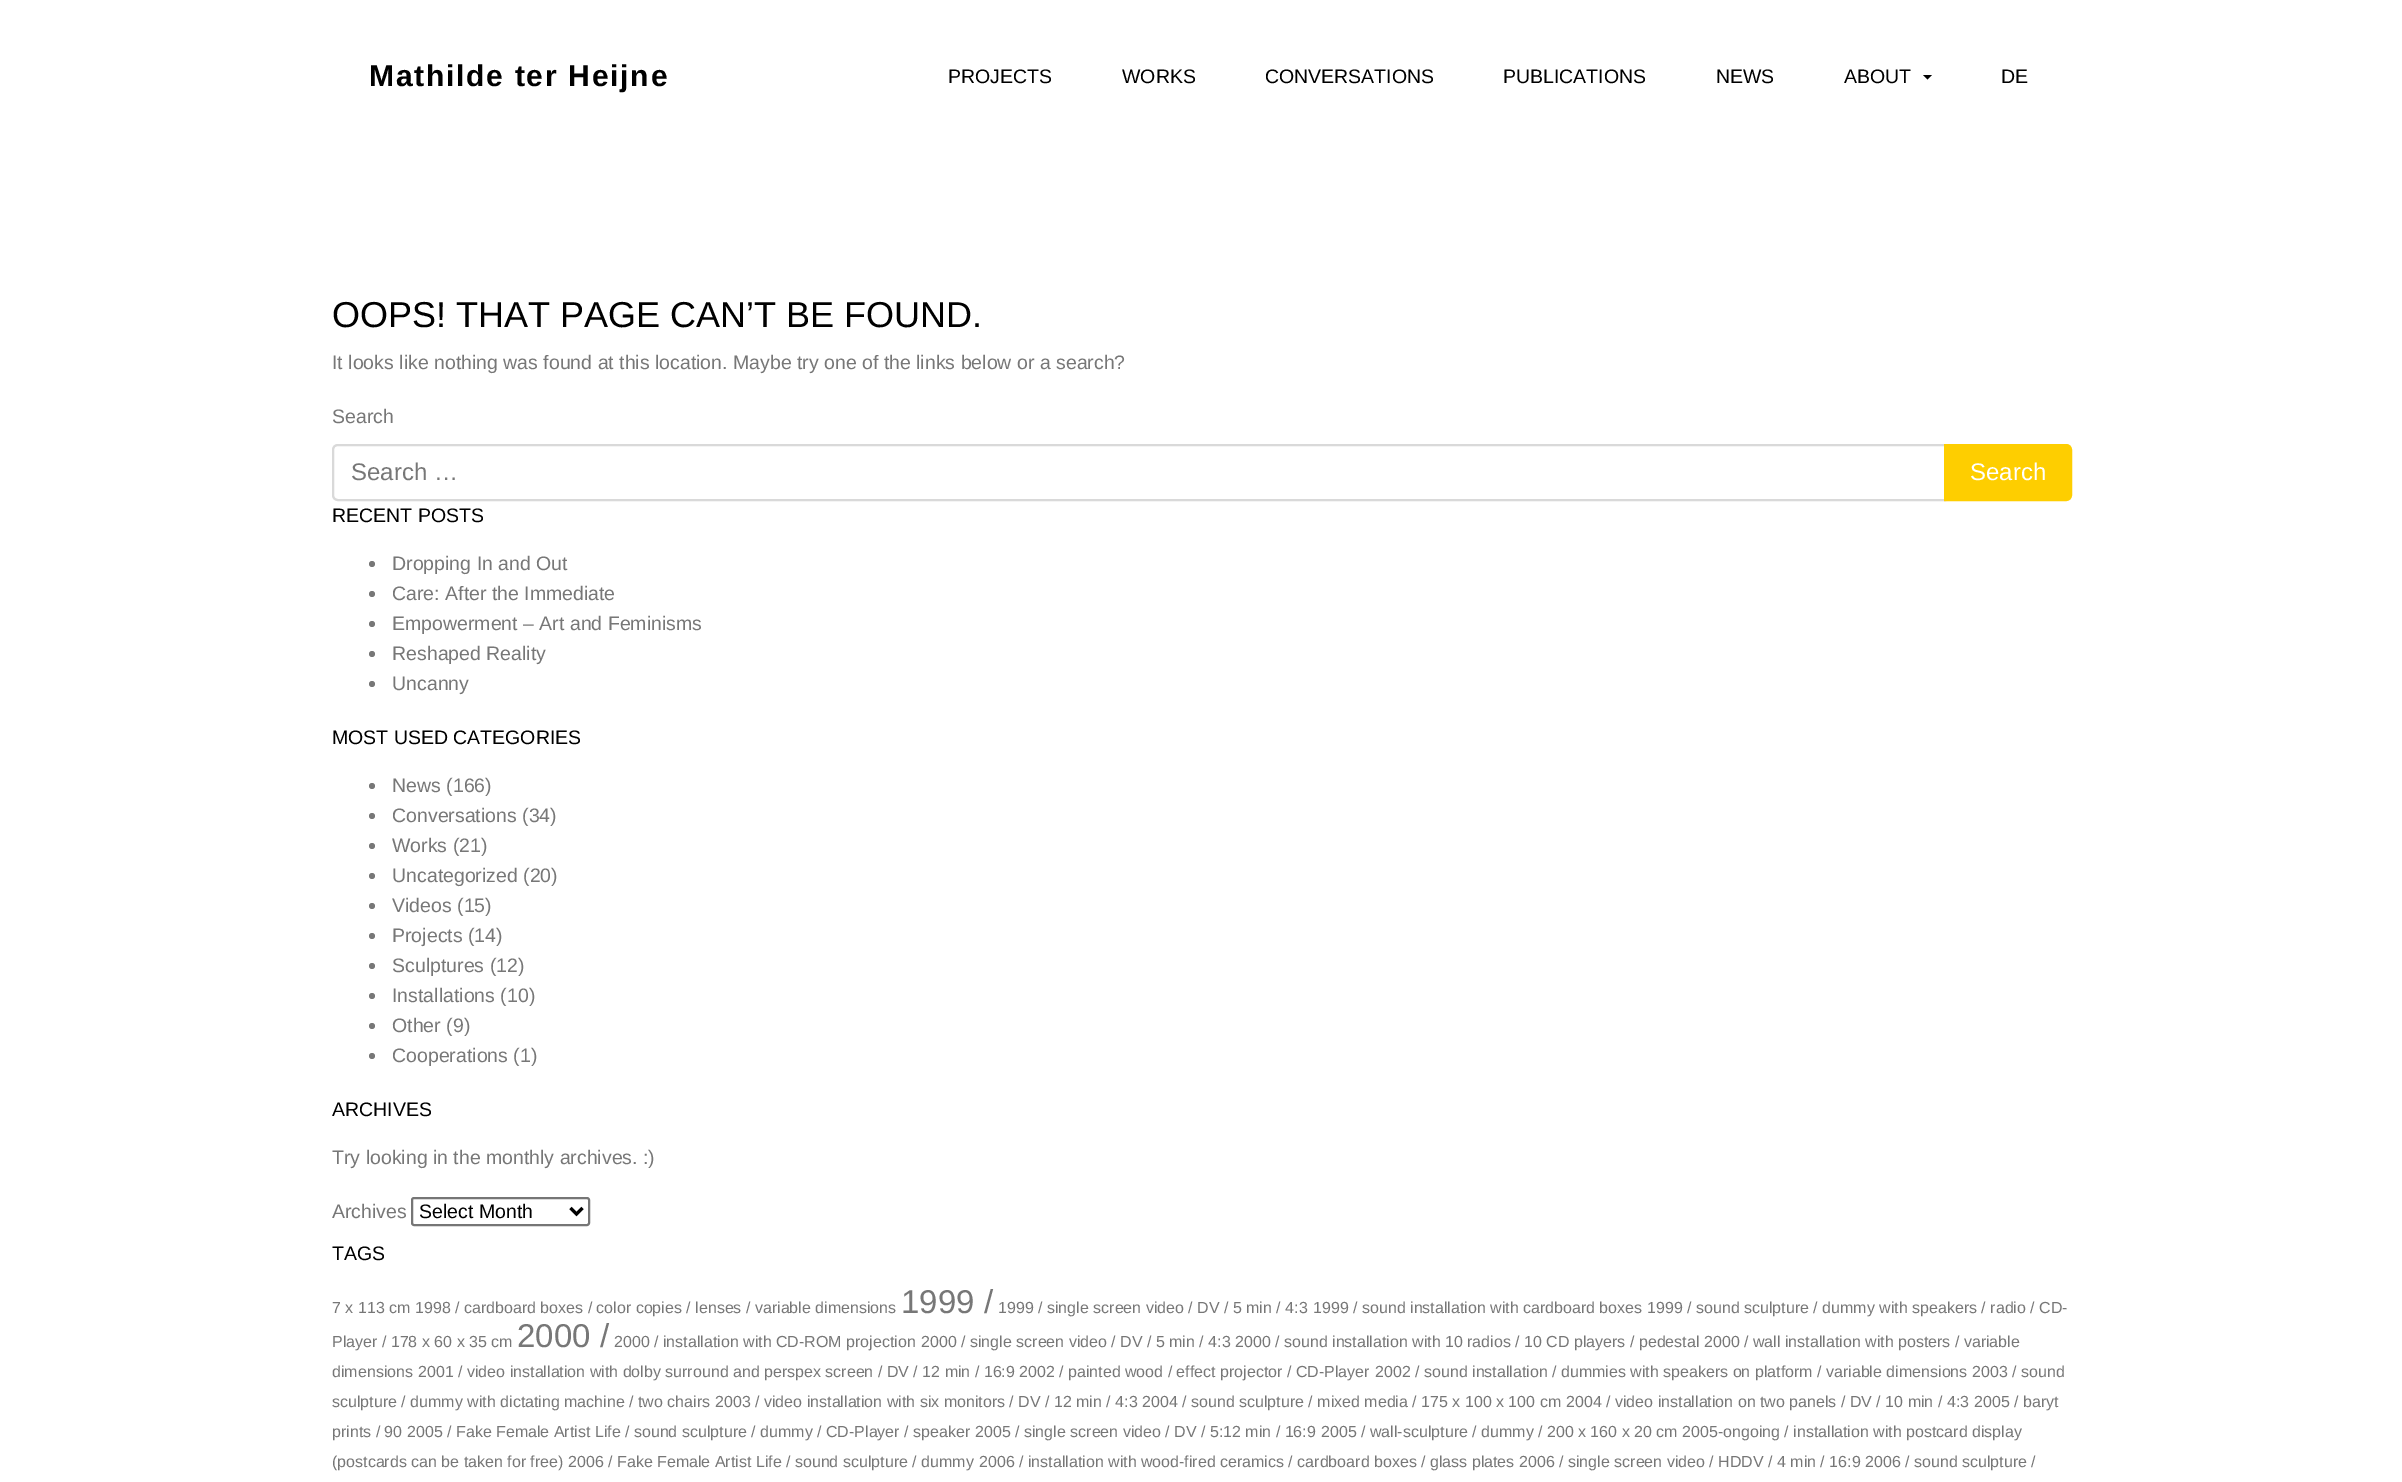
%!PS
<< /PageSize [2402 1482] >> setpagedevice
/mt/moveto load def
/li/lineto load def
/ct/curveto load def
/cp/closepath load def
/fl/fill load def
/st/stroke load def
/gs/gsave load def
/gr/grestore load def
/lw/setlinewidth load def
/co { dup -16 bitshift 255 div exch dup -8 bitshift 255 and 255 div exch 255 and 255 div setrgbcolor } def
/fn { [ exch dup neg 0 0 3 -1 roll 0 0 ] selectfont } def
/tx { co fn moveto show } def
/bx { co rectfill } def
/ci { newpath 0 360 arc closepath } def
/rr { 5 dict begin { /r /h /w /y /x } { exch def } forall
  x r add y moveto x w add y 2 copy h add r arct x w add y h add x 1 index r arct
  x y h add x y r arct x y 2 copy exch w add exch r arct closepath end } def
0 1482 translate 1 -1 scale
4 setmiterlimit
0 0 2402 1482 16#FFFFFF bx
16#000000 co
1923 75 mt 1932 75 li 1927.5 79.5 li cp fl
16#D9D9D9 co
2 lw
338 445 mt 1945 445 li 1945 500 li 338 500 li 335 500 333 498 333 495 ct 333 450 li 333 447 335 445 338 445 ct cp st
16#FECE00 co
1945 445 mt 2066 445 li 2069 445 2071 447 2071 450 ct 2071 495 li 2071 498 2069 500 2066 500 ct 1945 500 li cp gs fl gr
st
16#777777 co
372 564 3 ci fl
372 594 3 ci fl
372 624 3 ci fl
372 654 3 ci fl
372 684 3 ci fl
372 786 3 ci fl
372 816 3 ci fl
372 846 3 ci fl
372 876 3 ci fl
372 906 3 ci fl
372 936 3 ci fl
372 966 3 ci fl
372 996 3 ci fl
372 1026 3 ci fl
372 1056 3 ci fl
16#767676 co
412 1198 177 27 2 rr st
16#000000 co
3 lw
570.5 1208 mt 576.5 1214 li 582.5 1208 li st
/LiberationSans-Bold 30 fn
369 86 mt 1.75 0 (Mathilde ter Heijne) ashow
(PROJECTS) 948 83 /LiberationSans-Regular 19.5 16#000000 tx
(WORKS) 1122 83 /LiberationSans-Regular 19.5 16#000000 tx
(CONVERSATIONS) 1265 83 /LiberationSans-Regular 19.5 16#000000 tx
(PUBLICATIONS) 1503 83 /LiberationSans-Regular 19.5 16#000000 tx
(NEWS) 1716 83 /LiberationSans-Regular 19.5 16#000000 tx
(ABOUT) 1844 83 /LiberationSans-Regular 19.5 16#000000 tx
(DE) 2001 83 /LiberationSans-Regular 19.5 16#000000 tx
(OOPS! THAT PAGE CAN’T BE FOUND.) 332 327 /LiberationSans-Regular 36 16#000000 tx
(It looks like nothing was found at this location. Maybe try one of the links below or a search?) 332 369 /LiberationSans-Regular 19.5 16#777777 tx
(Search) 332 423 /LiberationSans-Regular 19.5 16#777777 tx
(Search …) 351 480 /LiberationSans-Regular 24 16#777777 tx
(Search) 1970 480 /LiberationSans-Regular 24 16#FFFFFF tx
(RECENT POSTS) 332 522 /LiberationSans-Regular 19.5 16#000000 tx
(Dropping In and Out) 392 570 /LiberationSans-Regular 19.5 16#777777 tx
(Care: After the Immediate) 392 600 /LiberationSans-Regular 19.5 16#777777 tx
(Empowerment – Art and Feminisms) 392 630 /LiberationSans-Regular 19.5 16#777777 tx
(Reshaped Reality) 392 660 /LiberationSans-Regular 19.5 16#777777 tx
(Uncanny) 392 690 /LiberationSans-Regular 19.5 16#777777 tx
(MOST USED CATEGORIES) 332 744 /LiberationSans-Regular 19.5 16#000000 tx
(News \(166\)) 392 792 /LiberationSans-Regular 19.5 16#777777 tx
(Conversations \(34\)) 392 822 /LiberationSans-Regular 19.5 16#777777 tx
(Works \(21\)) 392 852 /LiberationSans-Regular 19.5 16#777777 tx
(Uncategorized \(20\)) 392 882 /LiberationSans-Regular 19.5 16#777777 tx
(Videos \(15\)) 392 912 /LiberationSans-Regular 19.5 16#777777 tx
(Projects \(14\)) 392 942 /LiberationSans-Regular 19.5 16#777777 tx
(Sculptures \(12\)) 392 972 /LiberationSans-Regular 19.5 16#777777 tx
(Installations \(10\)) 392 1002 /LiberationSans-Regular 19.5 16#777777 tx
(Other \(9\)) 392 1032 /LiberationSans-Regular 19.5 16#777777 tx
(Cooperations \(1\)) 392 1062 /LiberationSans-Regular 19.5 16#777777 tx
(ARCHIVES) 332 1116 /LiberationSans-Regular 19.5 16#000000 tx
(Try looking in the monthly archives. :\)) 332 1164 /LiberationSans-Regular 19.5 16#777777 tx
(Archives) 332 1218 /LiberationSans-Regular 19.5 16#777777 tx
(Select Month) 419 1218 /LiberationSans-Regular 19.5 16#000000 tx
(TAGS) 332 1260 /LiberationSans-Regular 19.5 16#000000 tx
(7 x 113 cm) 332 1313 /LiberationSans-Regular 16 16#777777 tx
(1998 / cardboard boxes / color copies / lenses / variable dimensions) 415 1313 /LiberationSans-Regular 16 16#777777 tx
(1999 /) 901 1313 /LiberationSans-Regular 33 16#777777 tx
(1999 / single screen video / DV / 5 min / 4:3) 998 1313 /LiberationSans-Regular 16 16#777777 tx
(1999 / sound installation with cardboard boxes) 1313 1313 /LiberationSans-Regular 16 16#777777 tx
(1999 / sound sculpture / dummy with speakers / radio / CD-) 1647 1313 /LiberationSans-Regular 16 16#777777 tx
(Player / 178 x 60 x 35 cm) 332 1347 /LiberationSans-Regular 16 16#777777 tx
(2000 /) 517 1347 /LiberationSans-Regular 33 16#777777 tx
(2000 / installation with CD-ROM projection) 614 1347 /LiberationSans-Regular 16 16#777777 tx
(2000 / single screen video / DV / 5 min / 4:3) 921 1347 /LiberationSans-Regular 16 16#777777 tx
(2000 / sound installation with 10 radios / 10 CD players / pedestal) 1235 1347 /LiberationSans-Regular 16 16#777777 tx
(2000 / wall installation with posters / variable) 1704 1347 /LiberationSans-Regular 16 16#777777 tx
(dimensions) 332 1377 /LiberationSans-Regular 16 16#777777 tx
(2001 / video installation with dolby surround and perspex screen / DV / 12 min / 16:9) 418 1377 /LiberationSans-Regular 16 16#777777 tx
(2002 / painted wood / effect projector / CD-Player) 1019 1377 /LiberationSans-Regular 16 16#777777 tx
(2002 / sound installation / dummies with speakers on platform / variable dimensions) 1375 1377 /LiberationSans-Regular 16 16#777777 tx
(2003 / sound) 1972 1377 /LiberationSans-Regular 16 16#777777 tx
(sculpture / dummy with dictating machine / two chairs) 332 1407 /LiberationSans-Regular 16 16#777777 tx
(2003 / video installation with six monitors / DV / 12 min / 4:3) 715 1407 /LiberationSans-Regular 16 16#777777 tx
(2004 / sound sculpture / mixed media / 175 x 100 x 100 cm) 1142 1407 /LiberationSans-Regular 16 16#777777 tx
(2004 / video installation on two panels / DV / 10 min / 4:3) 1566 1407 /LiberationSans-Regular 16 16#777777 tx
(2005 / baryt) 1974 1407 /LiberationSans-Regular 16 16#777777 tx
(prints / 90) 332 1437 /LiberationSans-Regular 16 16#777777 tx
(2005 / Fake Female Artist Life / sound sculpture / dummy / CD-Player / speaker) 407 1437 /LiberationSans-Regular 16 16#777777 tx
(2005 / single screen video / DV / 5:12 min / 16:9) 975 1437 /LiberationSans-Regular 16 16#777777 tx
(2005 / wall-sculpture / dummy / 200 x 160 x 20 cm) 1321 1437 /LiberationSans-Regular 16 16#777777 tx
(2005-ongoing / installation with postcard display) 1682 1437 /LiberationSans-Regular 16 16#777777 tx
(\(postcards can be taken for free\)) 332 1467 /LiberationSans-Regular 16 16#777777 tx
(2006 / Fake Female Artist Life / sound sculpture / dummy) 568 1467 /LiberationSans-Regular 16 16#777777 tx
(2006 / installation with wood-fired ceramics / cardboard boxes / glass plates) 979 1467 /LiberationSans-Regular 16 16#777777 tx
(2006 / single screen video / HDDV / 4 min / 16:9) 1519 1467 /LiberationSans-Regular 16 16#777777 tx
(2006 / sound sculpture /) 1865 1467 /LiberationSans-Regular 16 16#777777 tx
showpage
